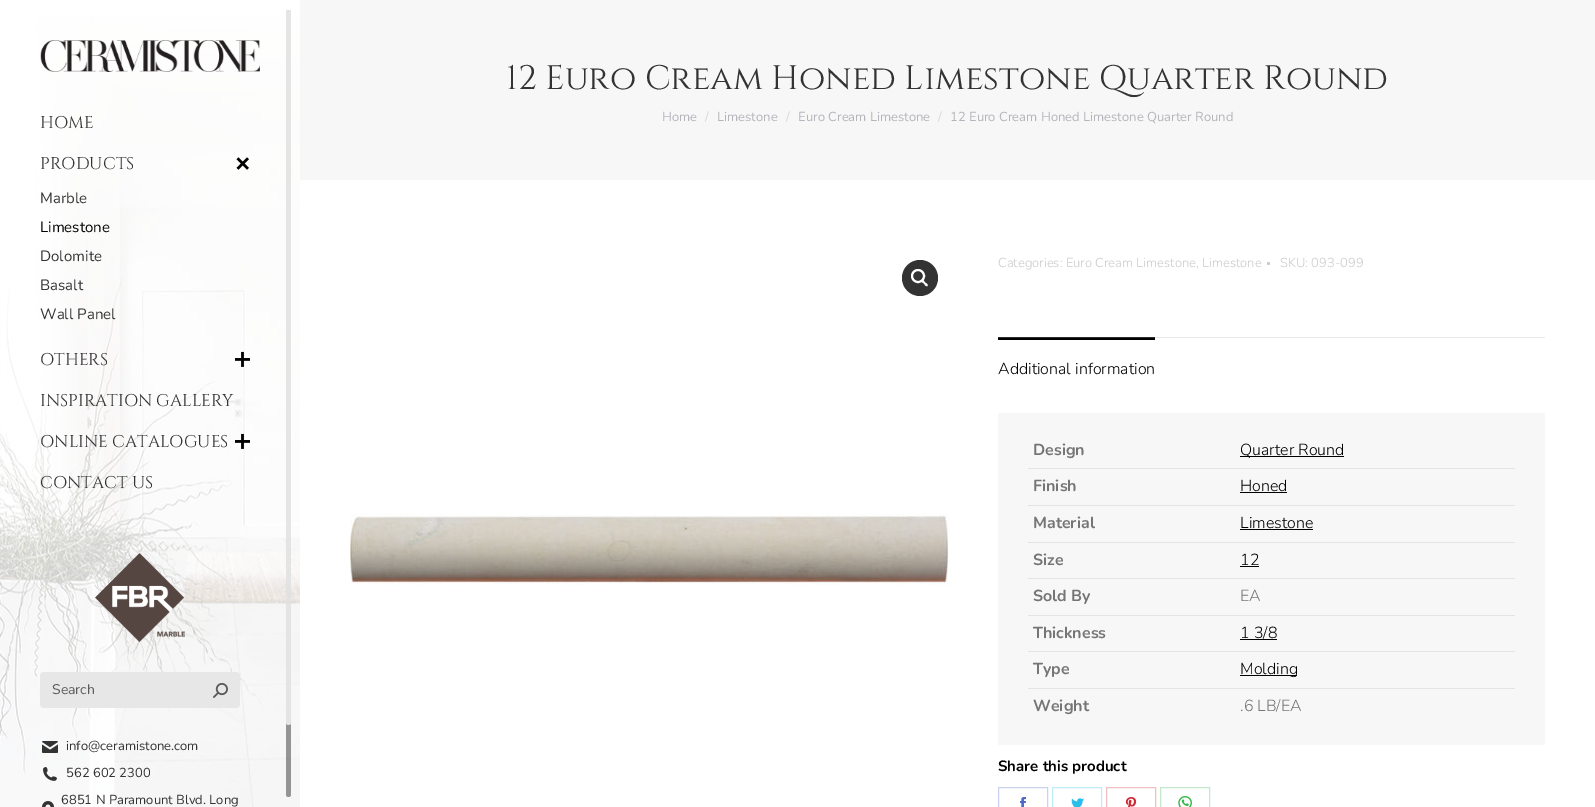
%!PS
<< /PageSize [1595 807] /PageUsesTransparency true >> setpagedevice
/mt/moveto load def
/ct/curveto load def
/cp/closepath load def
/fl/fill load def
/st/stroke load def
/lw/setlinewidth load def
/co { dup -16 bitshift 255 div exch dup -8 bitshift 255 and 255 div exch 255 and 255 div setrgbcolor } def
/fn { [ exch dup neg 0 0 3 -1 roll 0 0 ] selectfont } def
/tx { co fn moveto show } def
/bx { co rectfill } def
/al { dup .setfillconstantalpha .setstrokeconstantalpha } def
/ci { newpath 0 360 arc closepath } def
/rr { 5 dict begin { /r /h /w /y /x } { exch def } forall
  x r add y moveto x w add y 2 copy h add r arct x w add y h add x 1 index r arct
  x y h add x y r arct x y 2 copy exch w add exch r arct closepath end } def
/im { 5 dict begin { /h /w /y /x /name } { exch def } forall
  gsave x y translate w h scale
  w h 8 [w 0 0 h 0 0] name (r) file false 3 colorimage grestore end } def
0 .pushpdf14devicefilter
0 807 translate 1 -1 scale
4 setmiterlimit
0 0 1595 807 16#FFFFFF bx
1155 337 390 1 16#EAEAEA bx
300 0 1295 180 16#F7F7F7 bx
(media/1.raw) 0 15 300 792 im
(media/2.raw) 40 40 220 32 im
(media/3.raw) 236 157 13 13 im
(media/4.raw) 235 351 15 16 im
(media/5.raw) 235 433 15 16 im
(media/6.raw) 95 553 90 90 im
16#E7E7E7 co
40 672 200 36 4 rr fl
(media/7.raw) 213 683 15 15 im
(media/8.raw) 42 741 16 12 im
(media/9.raw) 43 767 14 14 im
(media/10.raw) 42 801 12 6 im
0.4 al
16#000000 co
286 10 5 787 2.5 rr fl
0.75 al
16#FFFFFF co
286 10 5 715 2.5 rr fl
1 al
16#333333 co
920 278 18 ci fl
16#FFFFFF co
2 lw
918 276 6 ci st
921.5 280 mt 923 279 924.5 281.5 925 282.5 ct 926 283 928.5 284.5 927.5 286 ct 926 287 924.5 284.5 924 283.5 ct 923 283 920.5 281.5 921.5 280 ct cp fl
(media/11.raw) 350 513 598 72 im
16#C9C9C9 co
1268.5 263.5 1.5 ci fl
998 338 157 2 16#000000 bx
998 337 157 1 16#2B2B2B bx
998 413 547 332 16#F7F7F7 bx
1240 456 104 1 16#000000 bx
1028 468 487 1 16#E4E4E4 bx
1240 492 47 1 16#000000 bx
1028 505 487 1 16#E4E4E4 bx
1240 529 73 1 16#000000 bx
1028 542 487 1 16#E4E4E4 bx
1240 566 19 1 16#000000 bx
1028 578 487 1 16#E4E4E4 bx
1028 615 487 1 16#E4E4E4 bx
1240 639 37 1 16#000000 bx
1028 651 487 1 16#E4E4E4 bx
1240 675 57 1 16#000000 bx
1028 688 487 1 16#E4E4E4 bx
16#C9D2EE co
1 lw
998.5 787.5 49 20 rectstroke
(media/12.raw) 1020 797 6 10 im
16#BFECF9 co
1052.5 787.5 49 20 rectstroke
(media/13.raw) 1071 798 13 9 im
16#F1BFC2 co
1106.5 787.5 49 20 rectstroke
(media/14.raw) 1125 797 12 10 im
16#C3E9CA co
1160.5 787.5 49 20 rectstroke
(media/15.raw) 1178 796 14 11 im
(12 Euro Cream Honed Limestone Quarter Round) 506 89 /Cinzel-Regular 34 16#333333 tx
(Home) 662 121 /Nunito-Regular 13 16#B4B5BB tx
(/) 705 121 /Nunito-Regular 13 16#D6D6D9 tx
(Limestone) 717 121 /Nunito-Regular 13 16#B4B5BB tx
(/) 786 121 /Nunito-Regular 13 16#D6D6D9 tx
(Euro Cream Limestone) 798 121 /Nunito-Regular 13 16#B4B5BB tx
(/) 938 121 /Nunito-Regular 13 16#D6D6D9 tx
(12 Euro Cream Honed Limestone Quarter Round) 950 121 /Nunito-Regular 13 16#B4B5BB tx
(HOME) 40 128 /Cinzel-Regular 17 16#333333 tx
(PRODUCTS) 40 169 /Cinzel-Regular 17 16#333333 tx
(Marble) 40 203 /Nunito-Regular 15 16#333333 tx
(Limestone) 40 232 /Nunito-Regular 15 16#000000 tx
(Dolomite) 40 261 /Nunito-Regular 15 16#333333 tx
(Basalt) 40 290 /Nunito-Regular 15 16#333333 tx
(Wall Panel) 40 319 /Nunito-Regular 15 16#333333 tx
(OTHERS) 40 365 /Cinzel-Regular 17 16#333333 tx
(INSPIRATION GALLERY) 40 406 /Cinzel-Regular 17 16#333333 tx
(ONLINE CATALOGUES) 40 447 /Cinzel-Regular 17 16#333333 tx
(CONTACT US) 40 488 /Cinzel-Regular 17 16#333333 tx
(Search) 52 694 /Nunito-Regular 14 16#5A5A5A tx
(info@ceramistone.com) 66 750 /Nunito-Regular 13 16#333333 tx
(562 602 2300) 66 777 /Nunito-Regular 13 16#333333 tx
(6851 N Paramount Blvd. Long) 61 804 /Nunito-Regular 13 16#333333 tx
(Categories: Euro Cream Limestone, Limestone) 998 267 /Nunito-Light 13 16#C9C9C9 tx
(SKU: 093-099) 1280 267 /Nunito-Light 13 16#C9C9C9 tx
(Additional information) 998 374 /Nunito-Light 16 16#000000 tx
(Design) 1033 455 /Nunito-Bold 16 16#757575 tx
(Quarter Round) 1240 455 /Nunito-Light 16 16#000000 tx
(Finish) 1033 491 /Nunito-Bold 16 16#757575 tx
(Honed) 1240 491 /Nunito-Light 16 16#000000 tx
(Material) 1033 528 /Nunito-Bold 16 16#757575 tx
(Limestone) 1240 528 /Nunito-Light 16 16#000000 tx
(Size) 1033 565 /Nunito-Bold 16 16#757575 tx
(12) 1240 565 /Nunito-Light 16 16#000000 tx
(Sold By) 1033 601 /Nunito-Bold 16 16#757575 tx
(EA) 1240 601 /Nunito-Light 16 16#757575 tx
(Thickness) 1033 638 /Nunito-Bold 16 16#757575 tx
(1 3/8) 1240 638 /Nunito-Light 16 16#000000 tx
(Type) 1033 674 /Nunito-Bold 16 16#757575 tx
(Molding) 1240 674 /Nunito-Light 16 16#000000 tx
(Weight) 1033 711 /Nunito-Bold 16 16#757575 tx
(.6 LB/EA) 1240 711 /Nunito-Light 16 16#757575 tx
(Share this product) 998 771 /Nunito-Bold 15 16#000000 tx
.poppdf14devicefilter showpage
